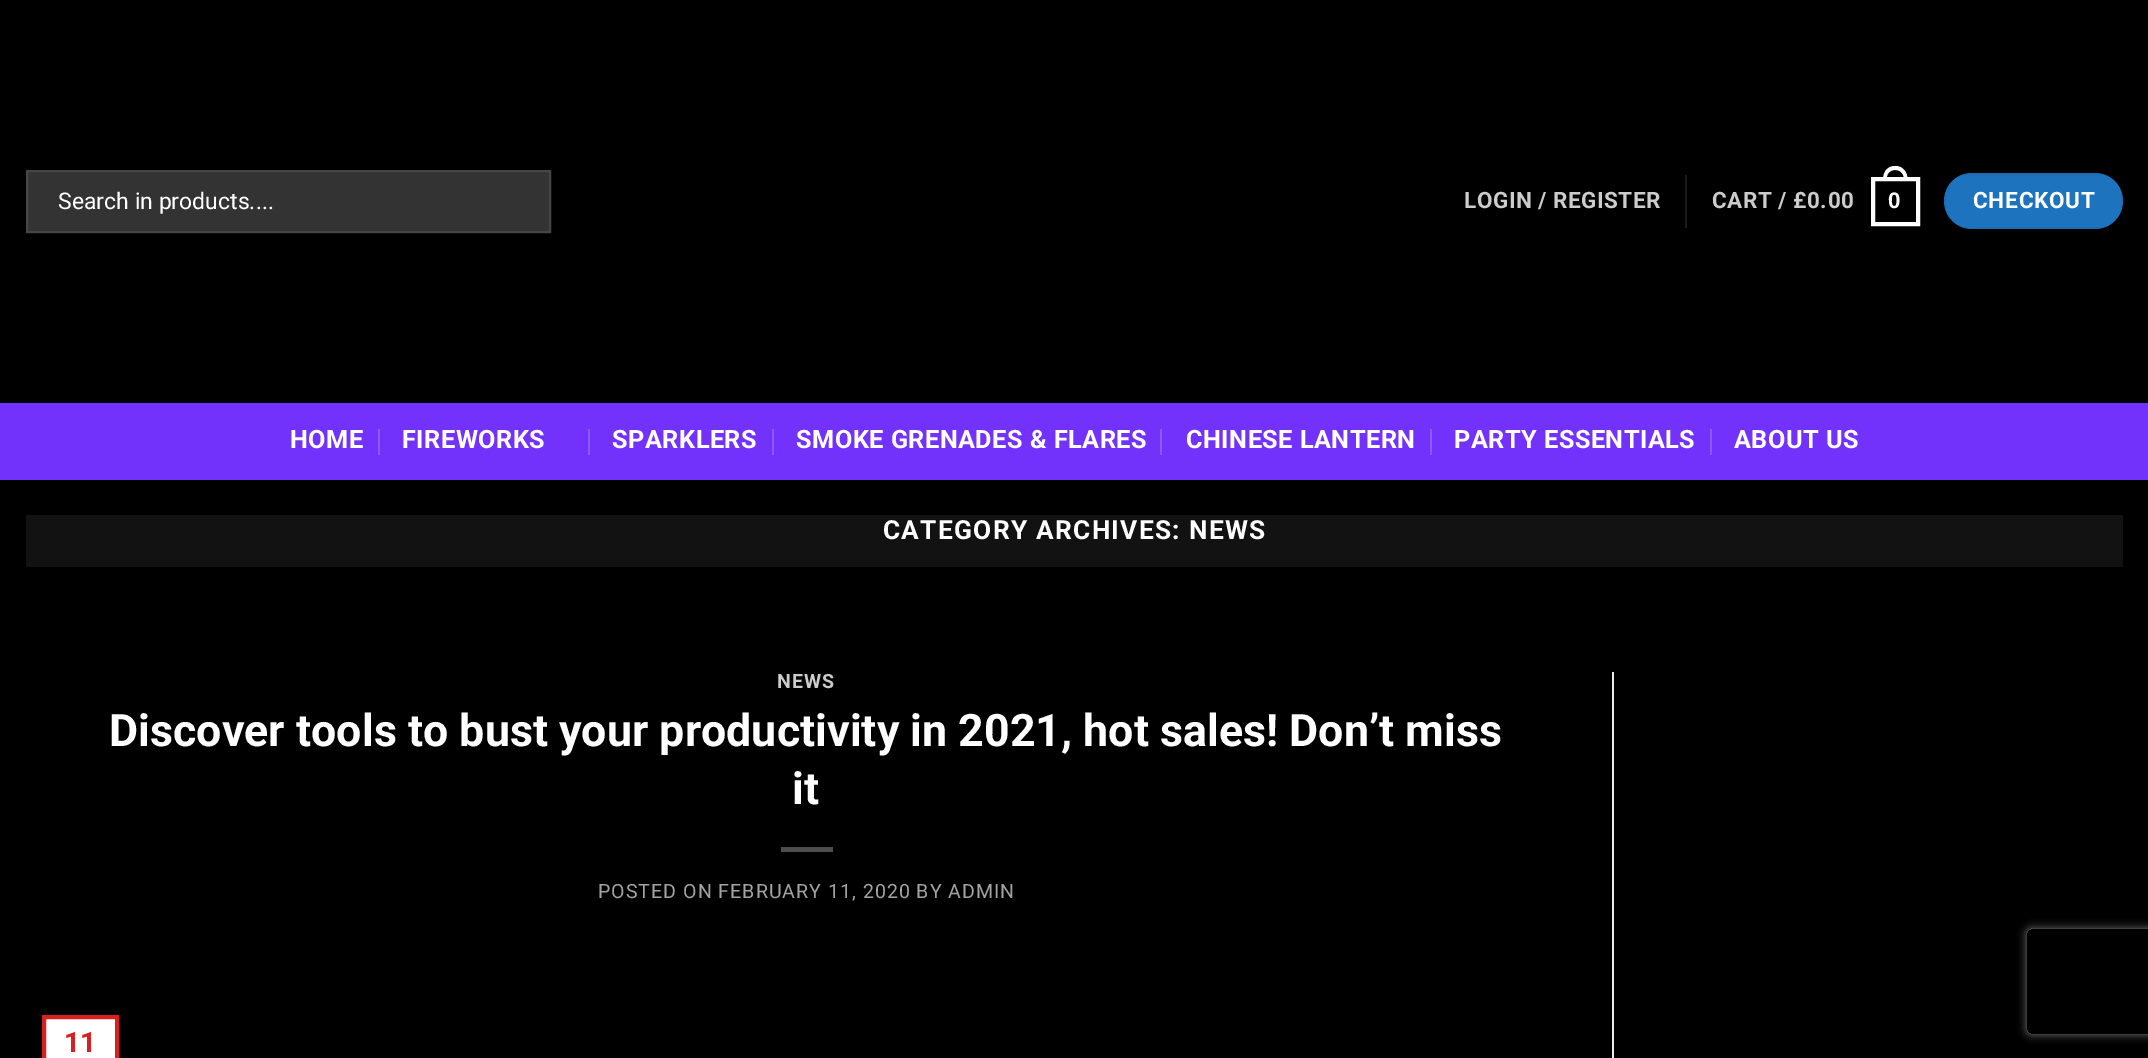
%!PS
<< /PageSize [2148 1058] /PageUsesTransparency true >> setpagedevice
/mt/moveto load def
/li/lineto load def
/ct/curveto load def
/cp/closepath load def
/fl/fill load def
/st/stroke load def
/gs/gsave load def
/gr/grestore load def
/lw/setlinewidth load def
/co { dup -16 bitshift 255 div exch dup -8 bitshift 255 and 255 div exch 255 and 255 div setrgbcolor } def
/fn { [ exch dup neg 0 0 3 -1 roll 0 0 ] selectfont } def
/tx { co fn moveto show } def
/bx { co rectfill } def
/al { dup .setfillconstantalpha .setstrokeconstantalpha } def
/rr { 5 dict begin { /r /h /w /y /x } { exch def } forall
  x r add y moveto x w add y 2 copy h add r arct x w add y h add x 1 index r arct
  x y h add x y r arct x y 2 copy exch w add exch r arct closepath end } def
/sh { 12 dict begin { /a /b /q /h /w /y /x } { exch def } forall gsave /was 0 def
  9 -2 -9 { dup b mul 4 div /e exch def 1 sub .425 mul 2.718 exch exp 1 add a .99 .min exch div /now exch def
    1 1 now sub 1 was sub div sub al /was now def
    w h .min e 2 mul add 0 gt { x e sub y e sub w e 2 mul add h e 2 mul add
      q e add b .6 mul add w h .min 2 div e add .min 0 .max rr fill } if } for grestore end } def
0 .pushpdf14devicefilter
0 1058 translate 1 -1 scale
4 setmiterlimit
0 0 2148 1058 16#000000 bx
16#333333 co
27 171 mt 550 171 li 550 232 li 27 232 li cp gs fl gr
16#454545 co
2 lw
st
1685 175 2 53 16#1A1A1A bx
16#FFFFFF co
4 lw
1873 179 45 45 rectstroke
1895 166 mt 1903.5 166 1907.5 172.5 1907.5 180 ct 1883 180 li 1883 172.5 1887 166 1895 166 ct cp 1895 170 mt 1901.5 170 1904 174.5 1904 180 ct 1886.5 180 li 1886.5 174.5 1889 170 1895 170 ct cp eofill
16#1E73BE co
1944 173 179 56 28 rr fl
0.05 al
16#000000 co
2 lw
1945 174 177 54 rectstroke
1 al
0 403 2148 77 16#7331FC bx
378 429 2 26 16#8F5AFD bx
588 429 2 26 16#8F5AFD bx
772 429 2 26 16#8F5AFD bx
1160 429 2 26 16#8F5AFD bx
1430 429 2 26 16#8F5AFD bx
1710 429 2 26 16#8F5AFD bx
26 515 2097 52 16#121212 bx
781 847 52 5 16#4D4D4D bx
16#FFFFFF co
44 1017 mt 117 1017 li 117 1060 li 44 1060 li cp gs fl gr
16#D92020 co
4 lw
st
1612 672 2 386 16#ECECEC bx
gs
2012 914 mt 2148 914 li 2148 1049 li 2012 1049 li cp 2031 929 mt 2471 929 li 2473 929 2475 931 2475 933 ct 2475 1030 li 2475 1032 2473 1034 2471 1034 ct 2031 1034 li 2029 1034 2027 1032 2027 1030 ct 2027 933 li 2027 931 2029 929 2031 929 ct cp eoclip newpath
16#808080 co
2027 929 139 105 4 4.5 1 sh
gr
(Search in products....) 58 209 /Roboto-Regular 23 16#FFFFFF tx
/Roboto-Bold 22.5 fn
16#CCCCCC co
1464 208 mt .5 0 (LOGIN / REGISTER) ashow
1712 208 mt .5 0 (CART / £0.00) ashow
/LiberationSans-Bold 22.5 fn
16#FFFFFF co
1888 208 mt .5 0 (0) ashow
/Roboto-Bold 22.5 fn
1973 208 mt .75 0 (CHECKOUT) ashow
/Roboto-Bold 25.25 fn
290 448 mt .5 0 (HOME) ashow
402 448 mt .5 0 (FIREWORKS) ashow
612 448 mt .5 0 (SPARKLERS) ashow
796 448 mt .5 0 (SMOKE GRENADES & FLARES) ashow
1186 448 mt .5 0 (CHINESE LANTERN) ashow
1454 448 mt .5 0 (PARTY ESSENTIALS) ashow
1734 448 mt .5 0 (ABOUT US) ashow
/Roboto-Bold 26.25 fn
883 539 mt 1.3 0 (CATEGORY ARCHIVES: NEWS) ashow
/Roboto-Bold 19.6 fn
16#CCCCCC co
777 688 mt 1 0 (NEWS) ashow
(Discover tools to bust your productivity in 2021, hot sales! Don’t miss) 109 746 /Roboto-Bold 44.8 16#FFFFFF tx
(it) 792 804 /Roboto-Bold 44.8 16#FFFFFF tx
/Roboto-Regular 19.6 fn
16#A3A3A3 co
598 898 mt 1 0 (POSTED ON FEBRUARY 11, 2020 BY ADMIN) ashow
(11) 64 1052 /Roboto-Bold 28 16#D92020 tx
.poppdf14devicefilter showpage
